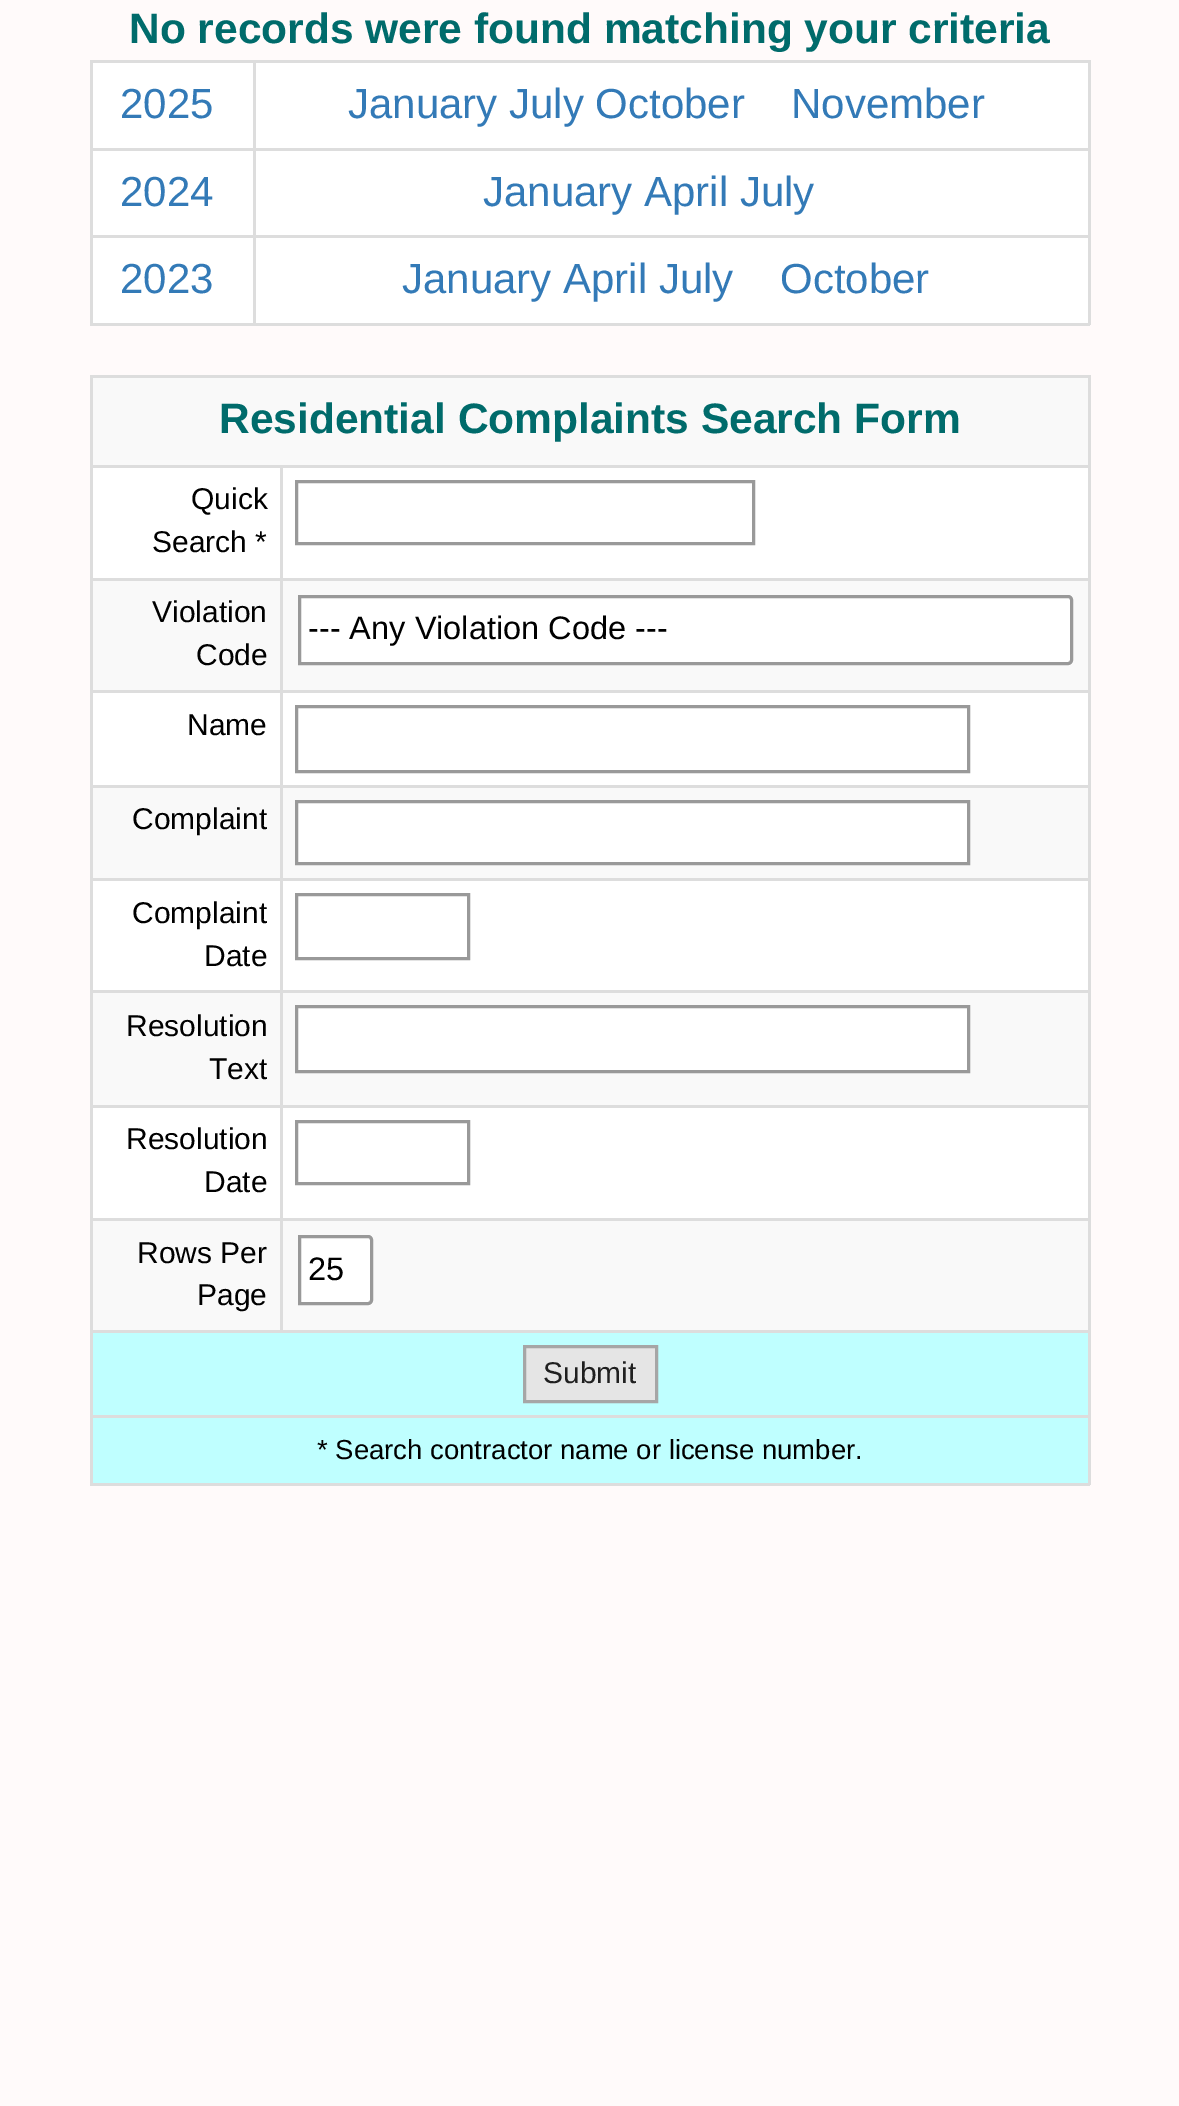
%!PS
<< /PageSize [1179 2106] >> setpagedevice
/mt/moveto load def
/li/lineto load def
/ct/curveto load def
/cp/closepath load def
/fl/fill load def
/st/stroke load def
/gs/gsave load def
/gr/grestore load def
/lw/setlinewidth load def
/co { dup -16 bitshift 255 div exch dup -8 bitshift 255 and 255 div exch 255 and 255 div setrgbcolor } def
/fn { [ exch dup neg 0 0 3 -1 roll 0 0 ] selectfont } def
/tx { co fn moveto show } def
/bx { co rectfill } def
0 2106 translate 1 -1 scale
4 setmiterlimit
0 0 1179 2106 16#FFFAFA bx
90 60 1000 3 16#DDDDDD bx
1088 60 3 265 16#DDDDDD bx
90 323 1000 3 16#DDDDDD bx
90 60 3 265 16#DDDDDD bx
93 63 160 85 16#FFFFFF bx
256 63 832 85 16#FFFFFF bx
253 148 837 3 16#DDDDDD bx
253 235 837 3 16#DDDDDD bx
253 235 3 90 16#DDDDDD bx
90 235 165 3 16#DDDDDD bx
253 148 3 90 16#DDDDDD bx
90 148 165 3 16#DDDDDD bx
253 60 3 90 16#DDDDDD bx
93 151 160 84 16#FFFFFF bx
256 151 832 84 16#FFFFFF bx
93 238 160 85 16#FFFFFF bx
256 238 832 85 16#FFFFFF bx
90 375 1000 3 16#DDDDDD bx
1088 375 3 1110 16#DDDDDD bx
90 1483 1000 3 16#DDDDDD bx
90 375 3 1110 16#DDDDDD bx
93 468 995 750 16#FFFFFF bx
93 378 995 87 16#F9F9F9 bx
280 465 810 3 16#DDDDDD bx
280 578 810 3 16#DDDDDD bx
93 581 995 109 16#F9F9F9 bx
280 690 810 3 16#DDDDDD bx
280 785 810 3 16#DDDDDD bx
93 788 995 90 16#F9F9F9 bx
280 878 810 3 16#DDDDDD bx
280 990 810 3 16#DDDDDD bx
93 993 995 112 16#F9F9F9 bx
280 1105 810 3 16#DDDDDD bx
280 1218 810 3 16#DDDDDD bx
93 1221 995 109 16#F9F9F9 bx
90 1330 1000 3 16#DDDDDD bx
280 1218 3 115 16#DDDDDD bx
90 1218 193 3 16#DDDDDD bx
280 1105 3 115 16#DDDDDD bx
90 1105 193 3 16#DDDDDD bx
280 990 3 118 16#DDDDDD bx
90 990 193 3 16#DDDDDD bx
280 878 3 115 16#DDDDDD bx
90 878 193 3 16#DDDDDD bx
280 785 3 95 16#DDDDDD bx
90 785 193 3 16#DDDDDD bx
280 690 3 98 16#DDDDDD bx
90 690 193 3 16#DDDDDD bx
280 578 3 115 16#DDDDDD bx
90 578 193 3 16#DDDDDD bx
280 465 3 115 16#DDDDDD bx
90 465 193 3 16#DDDDDD bx
16#999999 co
3 lw
296.5 481.5 457 62 rectstroke
16#FFFFFF co
299.5 596.5 mt 1068 596.5 li 1070 596.5 1071.5 598 1071.5 600 ct 1071.5 660 li 1071.5 662 1070 663.5 1068 663.5 ct 299.5 663.5 li cp gs fl gr
16#999999 co
st
296.5 706.5 672 65 rectstroke
16#FFFFFF co
296.5 801.5 mt 968.5 801.5 li 968.5 863.5 li 296.5 863.5 li cp gs fl gr
16#999999 co
st
296.5 894.5 172 64 rectstroke
16#FFFFFF co
296.5 1006.5 mt 968.5 1006.5 li 968.5 1071.5 li 296.5 1071.5 li cp gs fl gr
16#999999 co
st
296.5 1121.5 172 62 rectstroke
16#FFFFFF co
299.5 1236.5 mt 368 1236.5 li 370 1236.5 371.5 1238 371.5 1240 ct 371.5 1300 li 371.5 1302 370 1303.5 368 1303.5 ct 299.5 1303.5 li cp gs fl gr
16#999999 co
st
93 1333 995 82 16#BFFFFF bx
16#E5E5E5 co
524.5 1346.5 mt 656.5 1346.5 li 656.5 1401.5 li 524.5 1401.5 li cp gs fl gr
16#A6A6A6 co
st
93 1418 995 65 16#BFFFFF bx
90 1415 1000 3 16#DDDDDD bx
(No records were found matching your criteria) 129 43 /LiberationSans-Bold 42.5 16#006B6B tx
(2025) 120 118 /LiberationSans-Regular 42 16#337AB7 tx
(January July October) 348 118 /LiberationSans-Regular 42 16#337AB7 tx
(November) 791 118 /LiberationSans-Regular 42 16#337AB7 tx
(2024) 120 206 /LiberationSans-Regular 42 16#337AB7 tx
(January April July) 483 206 /LiberationSans-Regular 42 16#337AB7 tx
(2023) 120 293 /LiberationSans-Regular 42 16#337AB7 tx
(January April July) 402 293 /LiberationSans-Regular 42 16#337AB7 tx
(October) 780 293 /LiberationSans-Regular 42 16#337AB7 tx
(Residential Complaints Search Form) 219 433 /LiberationSans-Bold 42.5 16#006B6B tx
(Quick) 191 509 /LiberationSans-Regular 30 16#000000 tx
(Search *) 152 552 /LiberationSans-Regular 30 16#000000 tx
(Violation) 152 622 /LiberationSans-Regular 30 16#000000 tx
(Code) 196 665 /LiberationSans-Regular 30 16#000000 tx
(--- Any Violation Code ---) 308 639 /LiberationSans-Regular 32.5 16#000000 tx
(Name) 187 735 /LiberationSans-Regular 30 16#000000 tx
(Complaint) 132 829 /LiberationSans-Regular 30 16#000000 tx
(Complaint) 132 923 /LiberationSans-Regular 30 16#000000 tx
(Date) 204 966 /LiberationSans-Regular 30 16#000000 tx
(Resolution) 126 1036 /LiberationSans-Regular 30 16#000000 tx
(Text) 209 1079 /LiberationSans-Regular 30 16#000000 tx
(Resolution) 126 1149 /LiberationSans-Regular 30 16#000000 tx
(Date) 204 1192 /LiberationSans-Regular 30 16#000000 tx
(Rows Per) 137 1263 /LiberationSans-Regular 30 16#000000 tx
(Page) 197 1305 /LiberationSans-Regular 30 16#000000 tx
(25) 308 1280 /LiberationSans-Regular 32.5 16#000000 tx
(Submit) 543 1383 /LiberationSans-Regular 30 16#202020 tx
(* Search contractor name or license number.) 317 1459 /LiberationSans-Regular 27.5 16#000000 tx
showpage
